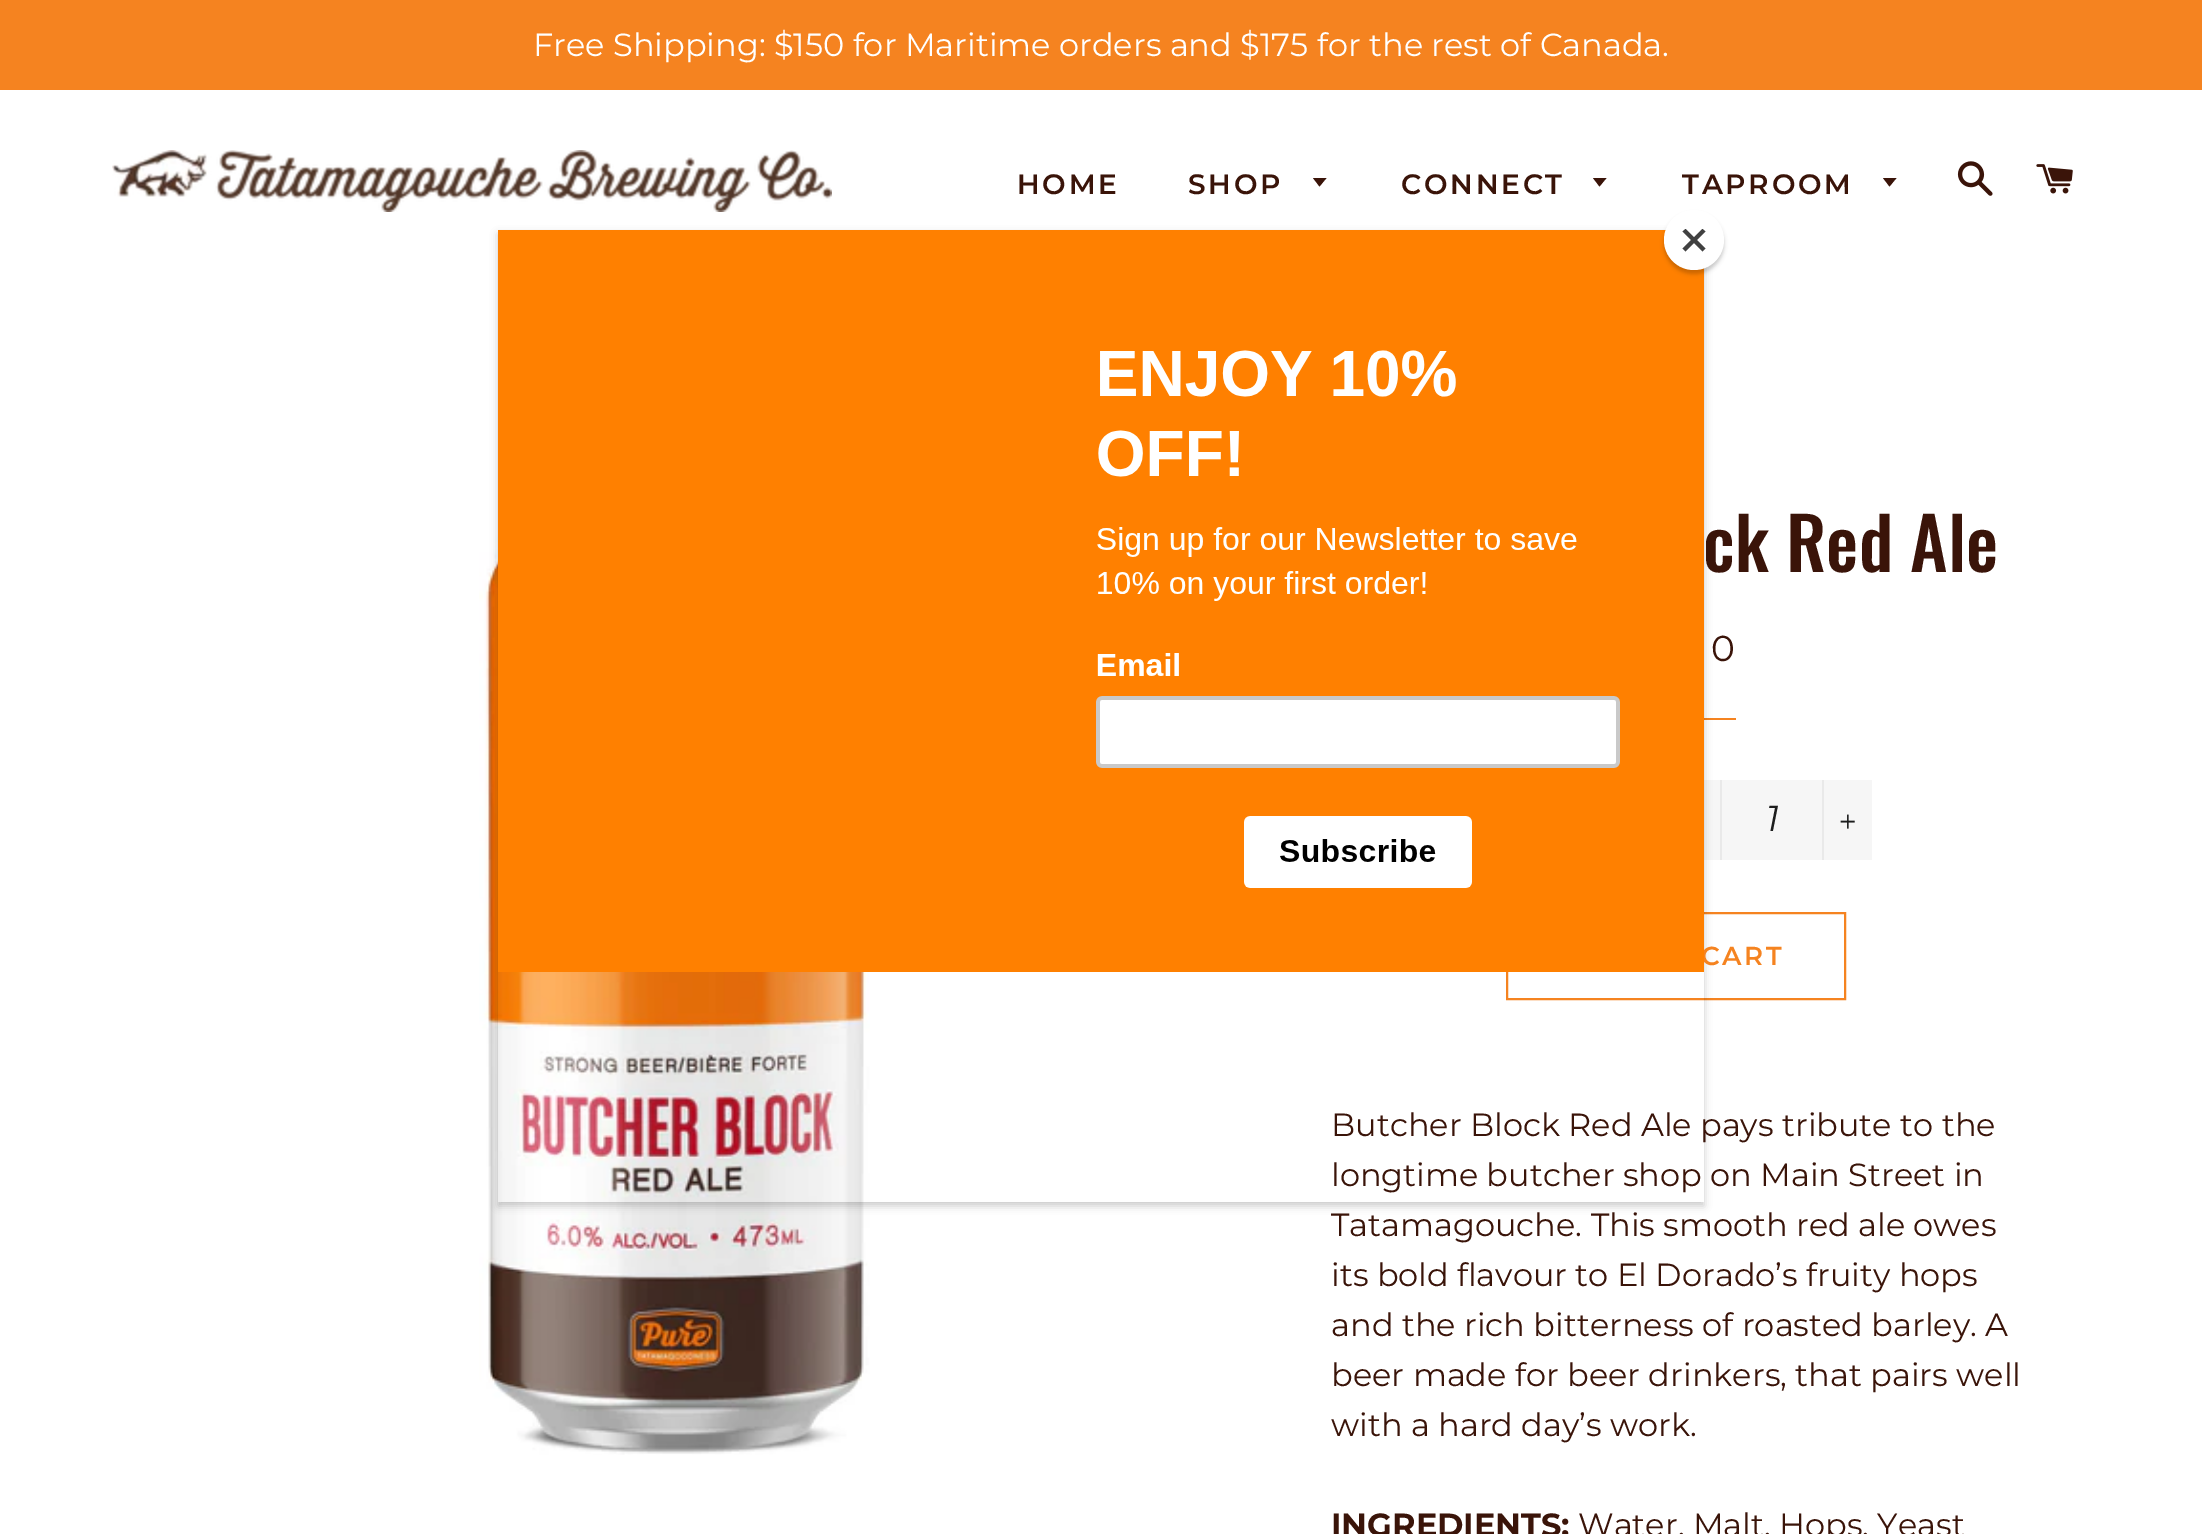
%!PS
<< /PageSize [2202 1534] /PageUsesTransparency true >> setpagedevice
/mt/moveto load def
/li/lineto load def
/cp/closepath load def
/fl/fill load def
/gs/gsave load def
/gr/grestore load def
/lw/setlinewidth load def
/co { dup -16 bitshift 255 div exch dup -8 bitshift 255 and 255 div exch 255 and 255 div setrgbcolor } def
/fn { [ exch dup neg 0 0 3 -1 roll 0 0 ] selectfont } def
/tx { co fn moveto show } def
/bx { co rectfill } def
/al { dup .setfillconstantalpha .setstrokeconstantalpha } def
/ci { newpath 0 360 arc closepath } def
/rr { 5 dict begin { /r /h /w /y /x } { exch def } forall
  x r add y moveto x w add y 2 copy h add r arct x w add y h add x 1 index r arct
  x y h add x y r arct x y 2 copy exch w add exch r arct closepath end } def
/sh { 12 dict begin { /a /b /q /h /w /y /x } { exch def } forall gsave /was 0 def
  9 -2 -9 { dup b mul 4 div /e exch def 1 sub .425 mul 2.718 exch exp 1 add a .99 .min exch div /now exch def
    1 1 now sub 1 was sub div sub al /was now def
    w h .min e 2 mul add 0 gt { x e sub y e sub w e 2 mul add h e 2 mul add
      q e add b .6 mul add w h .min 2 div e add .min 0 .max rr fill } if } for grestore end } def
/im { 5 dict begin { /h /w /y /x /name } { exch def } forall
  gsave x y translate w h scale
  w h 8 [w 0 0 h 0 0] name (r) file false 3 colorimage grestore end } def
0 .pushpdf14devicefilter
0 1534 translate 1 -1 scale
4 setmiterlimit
0 0 2202 1534 16#FFFFFF bx
0 0 2202 90 16#F58320 bx
(media/1.raw) 112 150 720 62 im
16#3A1409 co
1313 178 mt 1319.5 186.5 li 1326.5 178 li cp fl
1593 178 mt 1599.5 186.5 li 1606.5 178 li cp fl
1883 178 mt 1889.5 186.5 li 1896.5 178 li cp fl
(media/2.raw) 1957 161 36 35 im
(media/3.raw) 2036 164 37 30 im
(media/4.raw) 479 477 391 978 im
1704 718 32 2 16#F58320 bx
1704 780 168 80 16#F6F6F6 bx
1720 780 2 80 16#E9E9E9 bx
1822 780 2 80 16#E9E9E9 bx
(media/5.raw) 1840 814 15 15 im
16#F58320 co
2 lw
1507 913 338 86 rectstroke
gs
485 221 mt 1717 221 li 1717 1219 li 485 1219 li cp 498 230 mt 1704 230 li 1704 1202 li 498 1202 li cp eoclip newpath
16#000000 co
498 234 1206 972 0 4 .2 sh
gr
(Free Shipping: $150 for Maritime orders and $175 for the rest of Canada.) 533 56 /Montserrat-Regular 32 16#FFFFFF tx
/Montserrat-SemiBold 28 fn
16#3A1409 co
1017 194 mt 2.75 0 (HOME) ashow
1188 194 mt 2.75 0 (SHOP) ashow
1401 194 mt 2.75 0 (CONNECT) ashow
1682 194 mt 2.75 0 (TAPROOM) ashow
(ck Red Ale) 1703 572 /Oswald-Medium 72 16#3A1409 tx
/Montserrat-Regular 36 fn
1711 661 mt 4 0 (0) ashow
(1) 1766 831 /Montserrat-Italic 36 16#1C1D1D tx
/Montserrat-SemiBold 26 fn
16#F58320 co
1701 965 mt 2.5 0 (CART) ashow
(Butcher Block Red Ale pays tribute to the) 1331 1136 /Montserrat-Regular 32 16#3A1409 tx
(longtime butcher shop on Main Street in) 1331 1186 /Montserrat-Regular 32 16#3A1409 tx
(Tatamagouche. This smooth red ale owes) 1331 1236 /Montserrat-Regular 32 16#3A1409 tx
(its bold flavour to El Dorado’s fruity hops) 1331 1286 /Montserrat-Regular 32 16#3A1409 tx
(and the rich bitterness of roasted barley. A) 1331 1336 /Montserrat-Regular 32 16#3A1409 tx
(beer made for beer drinkers, that pairs well) 1331 1386 /Montserrat-Regular 32 16#3A1409 tx
(with a hard day’s work.) 1331 1436 /Montserrat-Regular 32 16#3A1409 tx
(INGREDIENTS:) 1331 1536 /Montserrat-Bold 32 16#3A1409 tx
(Water, Malt, Hops, Yeast) 1578 1536 /Montserrat-Regular 32 16#3A1409 tx
(media/6.raw) 498 230 1206 742 im
16#000000 co
1664 214 60 60 30 2 .2 sh
16#FFFFFF co
1694 240 30 ci fl
16#414141 co
1702.5 229 mt 1705.5 231.5 li 1685.5 251.5 li 1682.5 248.5 li cp fl
1682.5 231.5 mt 1685.5 229 li 1705.5 248.5 li 1702.5 251.5 li cp fl
.poppdf14devicefilter showpage
